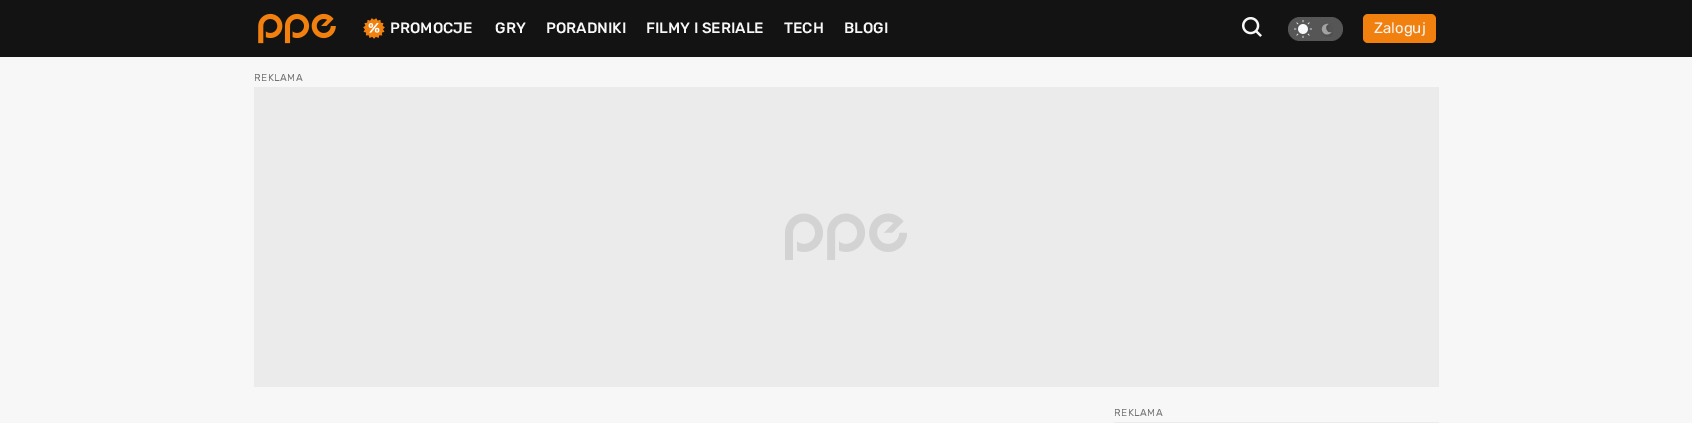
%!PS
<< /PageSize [1692 423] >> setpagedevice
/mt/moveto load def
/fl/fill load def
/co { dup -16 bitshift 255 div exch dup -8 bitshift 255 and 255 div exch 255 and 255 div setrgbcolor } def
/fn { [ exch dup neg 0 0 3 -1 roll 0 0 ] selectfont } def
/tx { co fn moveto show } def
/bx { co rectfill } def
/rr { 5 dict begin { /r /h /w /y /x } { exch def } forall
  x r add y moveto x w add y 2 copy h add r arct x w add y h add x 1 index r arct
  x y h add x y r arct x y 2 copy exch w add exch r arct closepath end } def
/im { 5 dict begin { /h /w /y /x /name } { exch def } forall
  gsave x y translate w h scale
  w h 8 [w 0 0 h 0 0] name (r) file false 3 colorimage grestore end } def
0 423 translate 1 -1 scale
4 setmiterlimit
0 0 1692 423 16#F7F7F7 bx
0 0 1692 57 16#131313 bx
(media/1.raw) 258 13 78 31 im
(media/2.raw) 363 18 22 21 im
(media/3.raw) 1242 17 20 20 im
16#565656 co
1288 17 55 24 12 rr fl
(media/4.raw) 1294 20 18 18 im
(media/5.raw) 1321 23 12 14 im
16#F2800E co
1363 14 73 29 5 rr fl
254 87 1185 300 16#EBEBEB bx
(media/6.raw) 785 213 122 47 im
1114 422 325 1 16#EBEBEB bx
(PROMOCJE) 390 33 /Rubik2-Light 15 16#F7F7F7 tx
(GRY) 495 33 /Rubik2-Light 15 16#F7F7F7 tx
(PORADNIKI) 546 33 /Rubik2-Light 15 16#F7F7F7 tx
(FILMY I SERIALE) 646 33 /Rubik2-Light 15 16#F7F7F7 tx
(TECH) 784 33 /Rubik2-Light 15 16#F7F7F7 tx
(BLOGI) 844 33 /Rubik2-Light 15 16#F7F7F7 tx
(Zaloguj) 1374 33 /Rubik-Light 15 16#F7F7F7 tx
/Rubik-Light 10 fn
16#707070 co
254 81 mt .5 0 (REKLAMA) ashow
1114 416 mt .5 0 (REKLAMA) ashow
showpage
